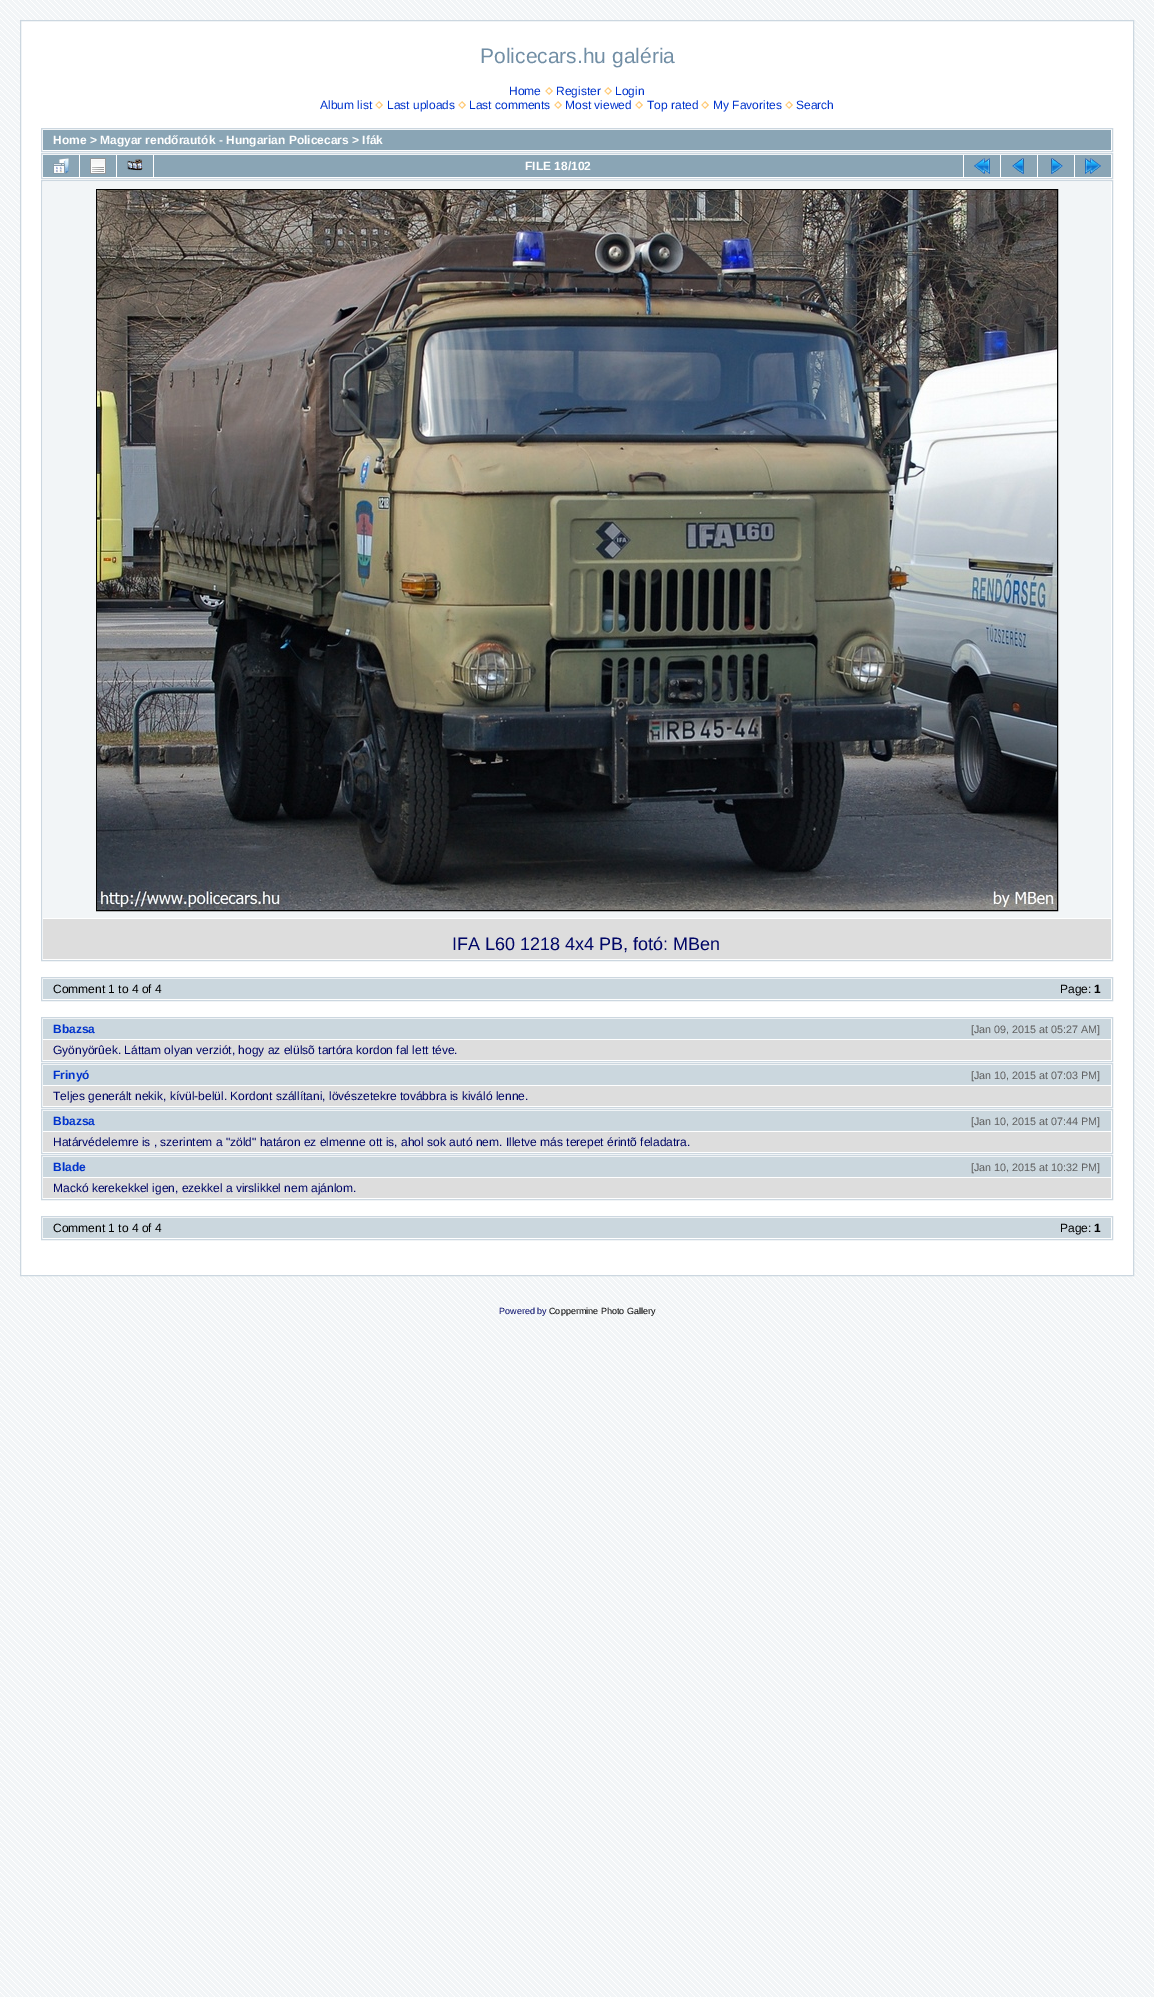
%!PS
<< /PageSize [1154 1997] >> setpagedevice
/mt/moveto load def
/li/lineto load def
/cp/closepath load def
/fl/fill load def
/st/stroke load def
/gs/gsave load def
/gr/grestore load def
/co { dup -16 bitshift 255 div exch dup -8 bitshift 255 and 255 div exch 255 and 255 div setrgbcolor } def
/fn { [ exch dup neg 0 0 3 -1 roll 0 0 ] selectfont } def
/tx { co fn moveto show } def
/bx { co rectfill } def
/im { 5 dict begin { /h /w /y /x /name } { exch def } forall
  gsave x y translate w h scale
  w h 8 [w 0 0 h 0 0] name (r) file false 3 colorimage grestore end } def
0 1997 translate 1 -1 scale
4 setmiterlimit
0 0 1154 1997 16#F2F5F7 bx
(media/1.raw) 0 0 1154 1997 im
16#FFFFFF co
20.5 20.5 mt 1133.5 20.5 li 1133.5 1275.5 li 20.5 1275.5 li cp gs fl gr
16#CCD7E0 co
st
(media/2.raw) 545 87 8 8 im
(media/2.raw) 604 87 8 8 im
(media/2.raw) 375 101 8 8 im
(media/2.raw) 458 101 8 8 im
(media/2.raw) 554 101 8 8 im
(media/2.raw) 635 101 8 8 im
(media/2.raw) 701 101 8 8 im
(media/2.raw) 785 101 8 8 im
41.5 128.5 1071 23 rectstroke
43 130 1068 20 16#8AA5B5 bx
16#CCD7E0 co
41.5 153.5 1071 25 rectstroke
43 155 36 22 16#8AA5B5 bx
(media/3.raw) 53 158 16 16 im
80 155 36 22 16#8AA5B5 bx
(media/4.raw) 90 158 16 16 im
117 155 36 22 16#8AA5B5 bx
(media/5.raw) 127 159 16 12 im
154 155 809 22 16#8AA5B5 bx
964 155 36 22 16#8AA5B5 bx
(media/6.raw) 974 158 16 16 im
1001 155 36 22 16#8AA5B5 bx
(media/7.raw) 1012 158 12 16 im
1038 155 36 22 16#8AA5B5 bx
(media/8.raw) 1051 158 12 16 im
1075 155 36 22 16#8AA5B5 bx
(media/9.raw) 1085 158 16 16 im
16#CCD7E0 co
41.5 180.5 1071 780 rectstroke
43 182 1068 736 16#F2F5F7 bx
16#000000 co
96.5 189.5 961 721 rectstroke
(media/10.raw) 97 190 960 720 im
43 919 1068 40 16#DDDDDD bx
16#CCD7E0 co
41.5 977.5 1071 23 rectstroke
43 979 1068 20 16#CBD7DE bx
16#CCD7E0 co
41.5 1017.5 1071 44 rectstroke
43 1019 1068 20 16#CBD7DE bx
43 1040 1068 20 16#DDDDDD bx
16#CCD7E0 co
41.5 1063.5 1071 44 rectstroke
43 1065 1068 20 16#CBD7DE bx
43 1086 1068 20 16#DDDDDD bx
16#CCD7E0 co
41.5 1109.5 1071 44 rectstroke
43 1111 1068 20 16#CBD7DE bx
43 1132 1068 20 16#DDDDDD bx
16#CCD7E0 co
41.5 1155.5 1071 44 rectstroke
43 1157 1068 20 16#CBD7DE bx
43 1178 1068 20 16#DDDDDD bx
16#CCD7E0 co
41.5 1216.5 1071 23 rectstroke
43 1218 1068 20 16#CBD7DE bx
(Policecars.hu galéria) 480 63 /LiberationSans-Regular 21 16#718EA5 tx
(Home) 509 95 /LiberationSans-Regular 12 16#0033CC tx
(Register) 556 95 /LiberationSans-Regular 12 16#0033CC tx
(Login) 615 95 /LiberationSans-Regular 12 16#0033CC tx
(Album list) 320 109 /LiberationSans-Regular 12 16#0033CC tx
(Last uploads) 387 109 /LiberationSans-Regular 12 16#0033CC tx
(Last comments) 469 109 /LiberationSans-Regular 12 16#0033CC tx
(Most viewed) 565 109 /LiberationSans-Regular 12 16#0033CC tx
(Top rated) 647 109 /LiberationSans-Regular 12 16#0033CC tx
(My Favorites) 713 109 /LiberationSans-Regular 12 16#0033CC tx
(Search) 796 109 /LiberationSans-Regular 12 16#0033CC tx
(Home > Magyar rendőrautók - Hungarian Policecars > Ifák) 53 144 /LiberationSans-Bold 12 16#FFFFFF tx
(FILE 18/102) 525 170 /LiberationSans-Bold 12 16#FFFFFF tx
(IFA L60 1218 4x4 PB, fotó: MBen) 452 950 /LiberationSans-Regular 18 16#000666 tx
(Comment 1 to 4 of 4) 53 993 /LiberationSans-Regular 12 16#000000 tx
(Page:) 1060 993 /LiberationSans-Regular 12 16#000000 tx
(1) 1094 993 /LiberationSans-Bold 12 16#000000 tx
(Bbazsa) 53 1033 /LiberationSans-Bold 12 16#0033CC tx
([Jan 09, 2015 at 05:27 AM]) 971 1033 /LiberationSans-Regular 10.75 16#5F5F5F tx
(Gyönyörûek. Láttam olyan verziót, hogy az elülsõ tartóra kordon fal lett téve.) 53 1054 /LiberationSans-Regular 12 16#000666 tx
(Frinyó) 53 1079 /LiberationSans-Bold 12 16#0033CC tx
([Jan 10, 2015 at 07:03 PM]) 971 1079 /LiberationSans-Regular 10.75 16#5F5F5F tx
(Teljes generált nekik, kívül-belül. Kordont szállítani, lövészetekre továbbra is kiváló lenne.) 53 1100 /LiberationSans-Regular 12 16#000666 tx
(Bbazsa) 53 1125 /LiberationSans-Bold 12 16#0033CC tx
([Jan 10, 2015 at 07:44 PM]) 971 1125 /LiberationSans-Regular 10.75 16#5F5F5F tx
(Határvédelemre is , szerintem a "zöld" határon ez elmenne ott is, ahol sok autó nem. Illetve más terepet érintõ feladatra.) 53 1146 /LiberationSans-Regular 12 16#000666 tx
(Blade) 53 1171 /LiberationSans-Bold 12 16#0033CC tx
([Jan 10, 2015 at 10:32 PM]) 971 1171 /LiberationSans-Regular 10.75 16#5F5F5F tx
(Mackó kerekekkel igen, ezekkel a virslikkel nem ajánlom.) 53 1192 /LiberationSans-Regular 12 16#000666 tx
(Comment 1 to 4 of 4) 53 1232 /LiberationSans-Regular 12 16#000000 tx
(Page:) 1060 1232 /LiberationSans-Regular 12 16#000000 tx
(1) 1094 1232 /LiberationSans-Bold 12 16#000000 tx
(Powered by) 499 1314 /LiberationSans-Regular 9 16#000666 tx
(Coppermine Photo Gallery) 549 1314 /LiberationSans-Regular 9 16#000000 tx
showpage
